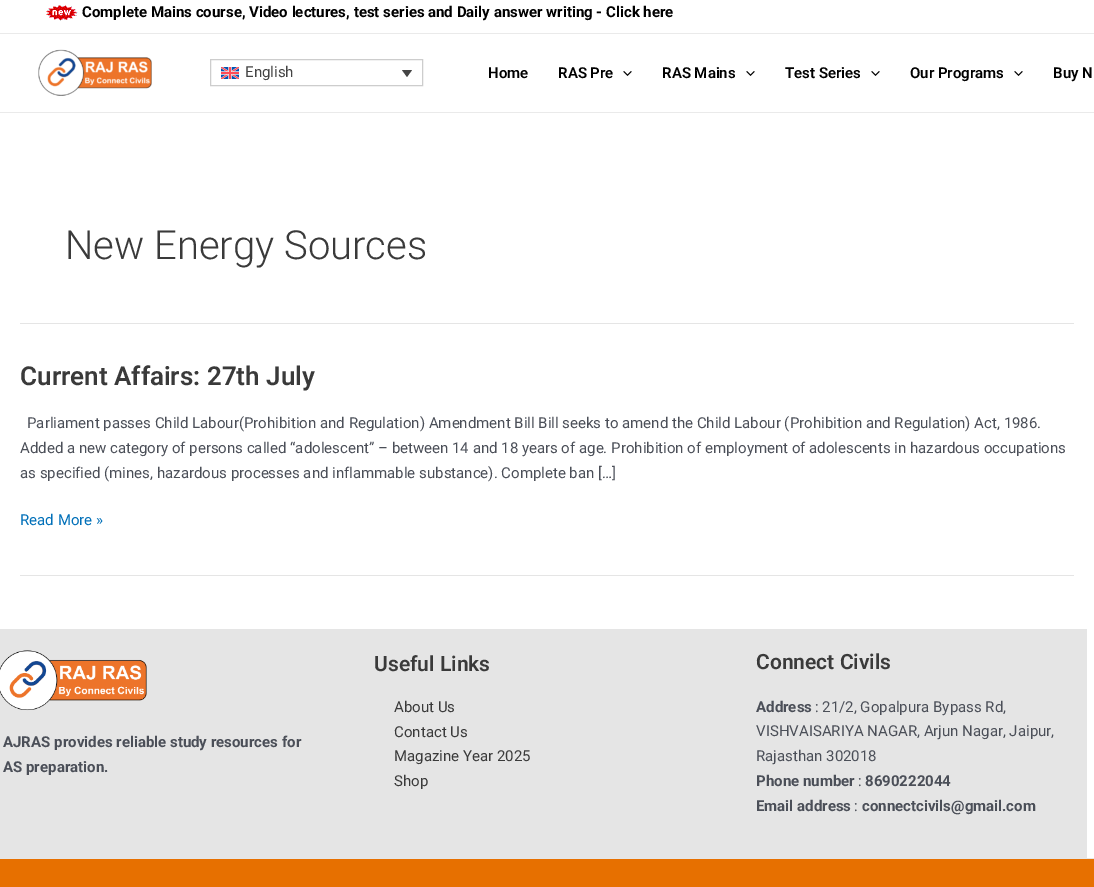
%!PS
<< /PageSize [1094 887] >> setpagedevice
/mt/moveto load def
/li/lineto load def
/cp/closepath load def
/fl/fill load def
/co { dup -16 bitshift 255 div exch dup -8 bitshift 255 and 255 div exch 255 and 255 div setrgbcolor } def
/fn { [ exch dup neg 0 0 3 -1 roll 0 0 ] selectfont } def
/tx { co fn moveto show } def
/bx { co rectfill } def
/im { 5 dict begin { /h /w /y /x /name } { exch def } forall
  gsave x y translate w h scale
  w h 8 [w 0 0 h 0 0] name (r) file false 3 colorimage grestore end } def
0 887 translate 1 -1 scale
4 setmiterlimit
0 0 1094 887 16#FFFFFF bx
0 33 1094 1 16#EAEAEA bx
(media/1.raw) 46 5 32 16 im
0 112 1094 1 16#EAEAEA bx
(media/2.raw) 38 49 114 47 im
16#CDCDCD co
210.5 59.5 212 26 rectstroke
(media/3.raw) 221 67 18 12 im
16#444444 co
402 70 mt 412 70 li 407 77 li cp fl
(media/4.raw) 623 71 9 5 im
(media/4.raw) 746 71 9 5 im
(media/4.raw) 871 71 9 5 im
(media/4.raw) 1014 71 9 5 im
20 323 1054 1 16#E5E5E5 bx
20 575 1054 1 16#E5E5E5 bx
0 629 1087 229 16#E5E5E5 bx
(media/5.raw) 0 650 147 61 im
0 859 1094 28 16#E77000 bx
0 858 1094 1 16#E6E6E6 bx
(Complete Mains course, Video lectures, test series and Daily answer writing - Click here) 82 17 /Roboto-Bold 15 16#000000 tx
(English) 245 77 /Roboto-Regular 15 16#444444 tx
(Home) 488 78 /Roboto-SemiBold 15 16#000000 tx
(RAS Pre) 558 78 /Roboto-SemiBold 15 16#000000 tx
(RAS Mains) 662 78 /Roboto-SemiBold 15 16#000000 tx
(Test Series) 785 78 /Roboto-SemiBold 15 16#000000 tx
(Our Programs) 910 78 /Roboto-SemiBold 15 16#000000 tx
(Buy N) 1053 78 /Roboto-SemiBold 15 16#000000 tx
(New Energy Sources) 65 259 /Roboto-Light 40 16#3A3A3A tx
(Current Affairs: 27th July) 20 385 /Roboto-SemiBold 26 16#3A3A3A tx
(Parliament passes Child Labour\(Prohibition and Regulation\) Amendment Bill Bill seeks to amend the Child Labour \(Prohibition and Regulation\) Act, 1986.) 27 428 /Roboto-Regular 15 16#4B4F58 tx
(Added a new category of persons called “adolescent” – between 14 and 18 years of age. Prohibition of employment of adolescents in hazardous occupations) 20 453 /Roboto-Regular 15 16#4B4F58 tx
(as specified \(mines, hazardous processes and inflammable substance\). Complete ban […]) 20 478 /Roboto-Regular 15 16#4B4F58 tx
(Read More ») 20 525 /Roboto-Regular 15 16#0170B9 tx
(AJRAS provides reliable study resources for) 3 747 /Roboto-Bold 15 16#4B4F58 tx
(AS preparation.) 3 772 /Roboto-Bold 15 16#4B4F58 tx
(Useful Links) 374 671 /Roboto-SemiBold 21 16#3A3A3A tx
(About Us) 394 712 /Roboto-Regular 15 16#3A3A3A tx
(Contact Us) 394 737 /Roboto-Regular 15 16#3A3A3A tx
(Magazine Year 2025) 394 761 /Roboto-Regular 15 16#3A3A3A tx
(Shop) 394 786 /Roboto-Regular 15 16#3A3A3A tx
(Connect Civils) 756 669 /Roboto-SemiBold 21 16#3A3A3A tx
(Address) 756 712 /Roboto-Bold 15 16#4B4F58 tx
(: 21/2, Gopalpura Bypass Rd,) 815 712 /Roboto-Regular 15 16#4B4F58 tx
(VISHVAISARIYA NAGAR, Arjun Nagar, Jaipur,) 756 736 /Roboto-Regular 15 16#4B4F58 tx
(Rajasthan 302018) 756 761 /Roboto-Regular 15 16#4B4F58 tx
(Phone number) 756 786 /Roboto-Bold 15 16#4B4F58 tx
(:) 858 786 /Roboto-Regular 15 16#4B4F58 tx
(8690222044) 865 786 /Roboto-Bold 15 16#4B4F58 tx
(Email address) 756 811 /Roboto-Bold 15 16#4B4F58 tx
(:) 854 811 /Roboto-Regular 15 16#4B4F58 tx
(connectcivils@gmail.com) 862 811 /Roboto-Bold 15 16#4B4F58 tx
showpage
